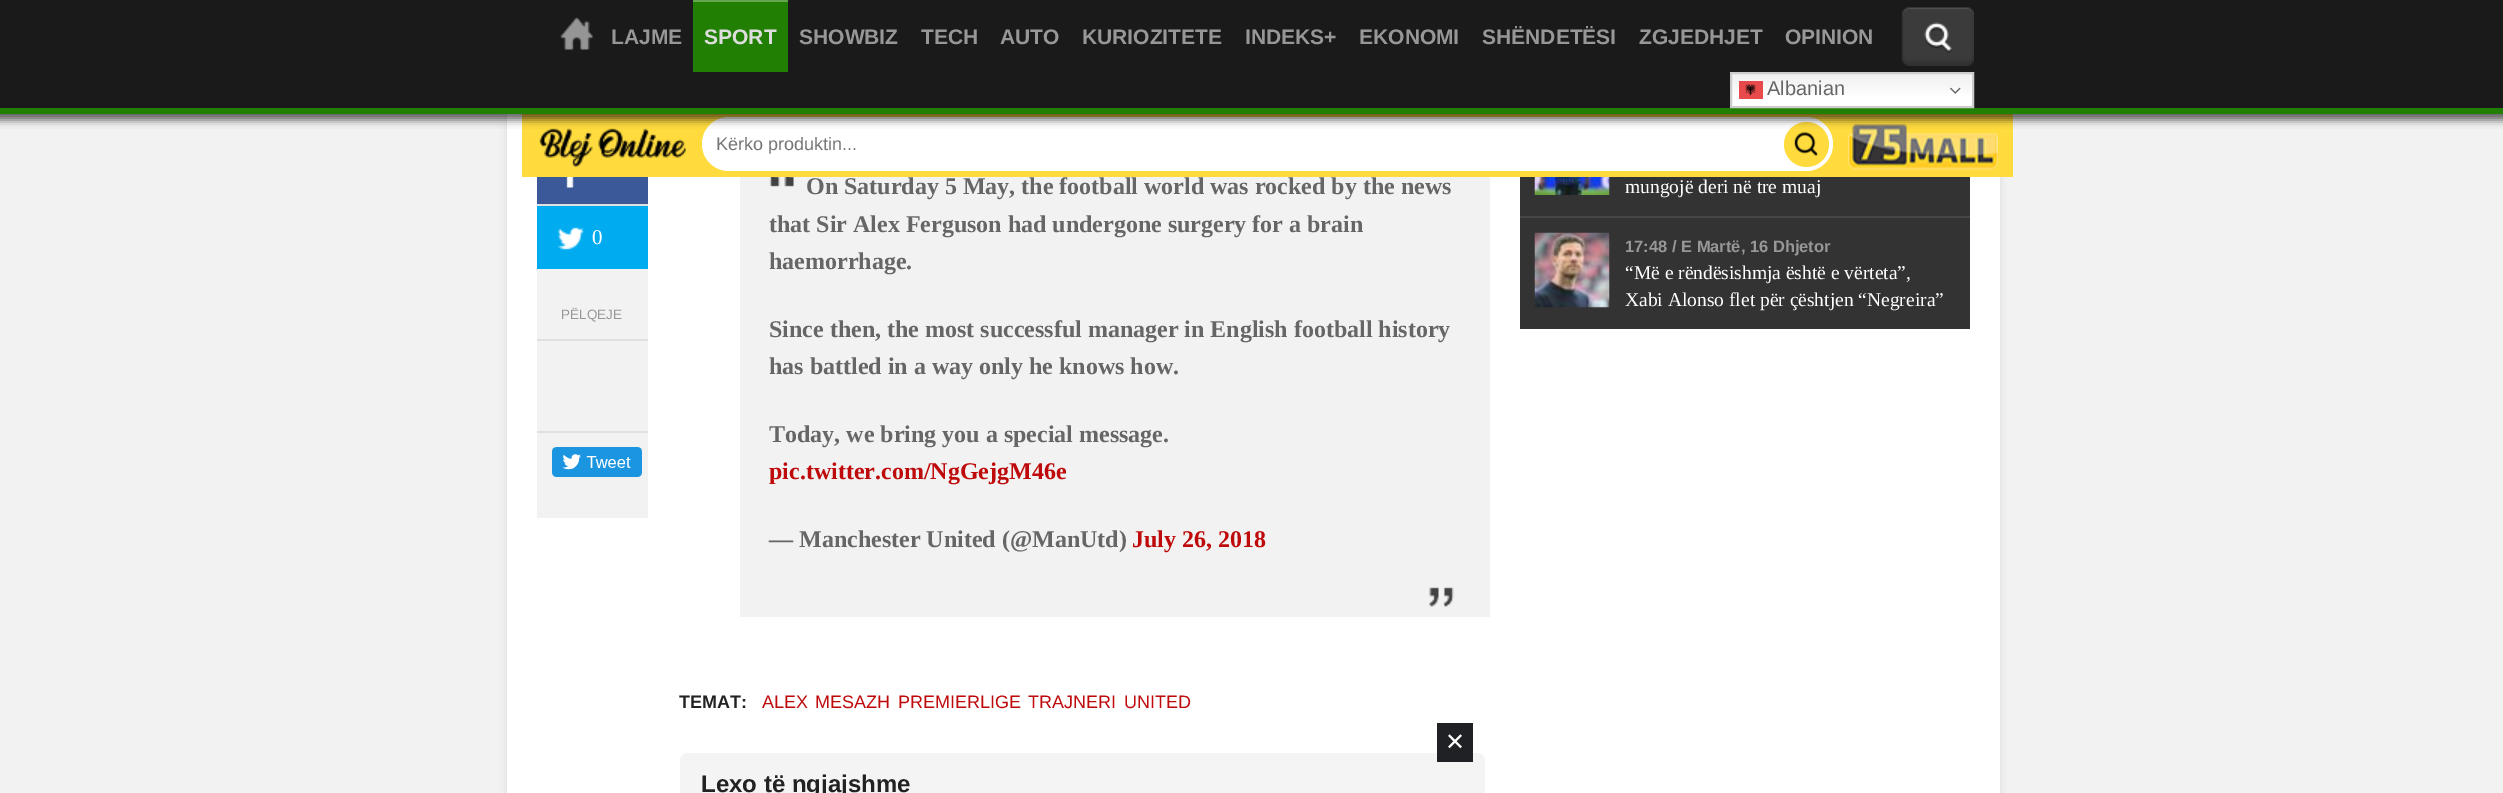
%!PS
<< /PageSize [2503 793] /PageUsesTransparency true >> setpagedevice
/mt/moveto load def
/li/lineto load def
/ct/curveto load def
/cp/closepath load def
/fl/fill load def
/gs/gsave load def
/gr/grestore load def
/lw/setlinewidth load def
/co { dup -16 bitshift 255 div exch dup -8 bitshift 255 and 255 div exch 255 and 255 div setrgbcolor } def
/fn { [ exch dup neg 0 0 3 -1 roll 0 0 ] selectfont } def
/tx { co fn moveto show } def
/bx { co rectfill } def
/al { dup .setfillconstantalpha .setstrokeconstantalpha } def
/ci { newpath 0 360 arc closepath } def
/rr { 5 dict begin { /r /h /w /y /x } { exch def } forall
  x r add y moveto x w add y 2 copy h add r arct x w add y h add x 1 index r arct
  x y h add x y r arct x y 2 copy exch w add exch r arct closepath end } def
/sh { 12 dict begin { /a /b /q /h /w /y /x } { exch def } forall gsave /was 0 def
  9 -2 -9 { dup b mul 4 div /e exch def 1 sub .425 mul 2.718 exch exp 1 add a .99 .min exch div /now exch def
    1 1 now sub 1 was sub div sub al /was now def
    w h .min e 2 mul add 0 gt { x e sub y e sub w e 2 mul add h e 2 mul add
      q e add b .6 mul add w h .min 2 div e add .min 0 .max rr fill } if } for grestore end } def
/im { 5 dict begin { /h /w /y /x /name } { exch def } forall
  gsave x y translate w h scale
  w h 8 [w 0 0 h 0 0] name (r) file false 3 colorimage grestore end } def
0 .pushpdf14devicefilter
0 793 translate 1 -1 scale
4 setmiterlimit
0 0 2503 793 16#F2F2F2 bx
16#000000 co
507 -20 1493 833 8 4 .09 sh
507 114 1493 679 16#FFFFFF bx
522 114 1491 63 16#FFDB3E bx
(media/5.raw) 539 128 147 39 im
16#FFFFFF co
702 117 1131 54 27 rr fl
16#FFDB3E co
1806.5 144.5 22.5 ci fl
(media/6.raw) 1794 132 24 24 im
(media/7.raw) 1848 123 150 48 im
16#000000 co
-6 -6 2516 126 0 4 .6 sh
0 0 2503 108 16#1A1A1A bx
0 108 2503 6 16#217F03 bx
(media/1.raw) 560 17 33 33 im
693 2 95 70 16#217F03 bx
693 0 95 2 16#64A54F bx
(media/2.raw) 1901 7 73 59 im
gs 1732 74 mt 1972 74 li 1972 106 li 1732 106 li cp clip newpath
<< /ShadingType 2 /ColorSpace /DeviceRGB /Coords [1852 72 1852 108] /Extend [true true] /Function << /FunctionType 3 /Domain [0 1] /Functions [<< /FunctionType 2 /Domain [0 1] /C0 [.937 .937 .937] /C1 [1 1 1] /N 1 >> << /FunctionType 2 /Domain [0 1] /C0 [1 1 1] /C1 [1 1 1] /N 1 >>] /Bounds [.7] /Encode [0 1 0 1] >> >> shfill gr
16#CCCCCC co
2 lw
1731 73 242 34 rectstroke
(media/3.raw) 1739 81 24 18 im
(media/4.raw) 1950 87 11 7 im
537 269 111 249 16#F2F2F2 bx
537 177 111 27 16#3B5998 bx
(media/8.raw) 565 177 9 11 im
537 206 111 63 16#00ABF0 bx
537 204 111 2 16#E0E0E0 bx
(media/9.raw) 557 227 27 23 im
537 339 111 2 16#E0E0E0 bx
537 431 111 2 16#E0E0E0 bx
(media/10.raw) 552 447 90 30 im
740 177 750 440 16#F2F2F2 bx
(media/11.raw) 769 177 26 10 im
(media/12.raw) 1429 586 25 22 im
16#F4F4F4 co
688 753 mt 1477 753 li 1481.5 753 1485 756.5 1485 761 ct 1485 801 li 680 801 li 680 761 li 680 756.5 683.5 753 688 753 ct cp fl
1520 177 450 39 16#333333 bx
(media/13.raw) 1534 177 76 18 im
1520 218 450 111 16#333333 bx
1520 216 450 2 16#464646 bx
(media/14.raw) 1534 232 76 76 im
1437 723 36 39 16#202124 bx
(LAJME) 611 44 /LiberationSans-Bold 21 16#979797 tx
(SPORT) 704 44 /LiberationSans-Bold 21 16#DDDDDD tx
(SHOWBIZ) 799 44 /LiberationSans-Bold 21 16#979797 tx
(TECH) 921 44 /LiberationSans-Bold 21 16#979797 tx
(AUTO) 1000 44 /LiberationSans-Bold 21 16#979797 tx
(KURIOZITETE) 1082 44 /LiberationSans-Bold 21 16#979797 tx
(INDEKS+) 1245 44 /LiberationSans-Bold 21 16#979797 tx
(EKONOMI) 1359 44 /LiberationSans-Bold 21 16#979797 tx
(SHËNDETËSI) 1482 44 /LiberationSans-Bold 21 16#979797 tx
(ZGJEDHJET) 1639 44 /LiberationSans-Bold 21 16#979797 tx
(OPINION) 1785 44 /LiberationSans-Bold 21 16#979797 tx
(Albanian) 1767 95 /LiberationSans-Regular 20 16#666666 tx
(Kërko produktin...) 716 150 /LiberationSans-Regular 18 16#757575 tx
(0) 592 244 /LiberationSerif-Regular 21 16#FFFFFF tx
(PËLQEJE) 561 319 /LiberationSans-Regular 13.5 16#979797 tx
(On Saturday 5 May, the football world was rocked by the news) 806 194 /LiberationSerif-Bold 24 16#666666 tx
(that Sir Alex Ferguson had undergone surgery for a brain) 769 232 /LiberationSerif-Bold 24 16#666666 tx
(haemorrhage.) 769 269 /LiberationSerif-Bold 24 16#666666 tx
(Since then, the most successful manager in English football history) 769 337 /LiberationSerif-Bold 24 16#666666 tx
(has battled in a way only he knows how.) 769 374 /LiberationSerif-Bold 24 16#666666 tx
(Today, we bring you a special message.) 769 442 /LiberationSerif-Bold 24 16#666666 tx
(pic.twitter.com/NgGejgM46e) 769 479 /LiberationSerif-Bold 24 16#BE0A0B tx
(— Manchester United \(@ManUtd\)) 769 547 /LiberationSerif-Bold 24 16#666666 tx
(July 26, 2018) 1132 547 /LiberationSerif-Bold 24 16#BE0A0B tx
(TEMAT:) 679 708 /LiberationSans-Bold 18 16#222222 tx
(ALEX) 762 708 /LiberationSans-Regular 18 16#BE0A0B tx
(MESAZH) 815 708 /LiberationSans-Regular 18 16#BE0A0B tx
(PREMIERLIGE) 898 708 /LiberationSans-Regular 18 16#BE0A0B tx
(TRAJNERI) 1028 708 /LiberationSans-Regular 18 16#BE0A0B tx
(UNITED) 1124 708 /LiberationSans-Regular 18 16#BE0A0B tx
(Lexo të ngjajshme) 701 792 /LiberationSans-Bold 24 16#222222 tx
(mungojë deri në tre muaj) 1625 193 /LiberationSerif-Regular 19.5 16#FFFFFF tx
(17:48 / E Martë, 16 Dhjetor) 1625 252 /LiberationSans-Bold 16.5 16#979797 tx
(“Më e rëndësishmja është e vërteta”,) 1625 279 /LiberationSerif-Regular 19.5 16#FFFFFF tx
(Xabi Alonso flet për çështjen “Negreira”) 1625 306 /LiberationSerif-Regular 19.5 16#FFFFFF tx
(✕) 1445 750 /DejaVuSans-Regular 24 16#FFFFFF tx
.poppdf14devicefilter showpage
